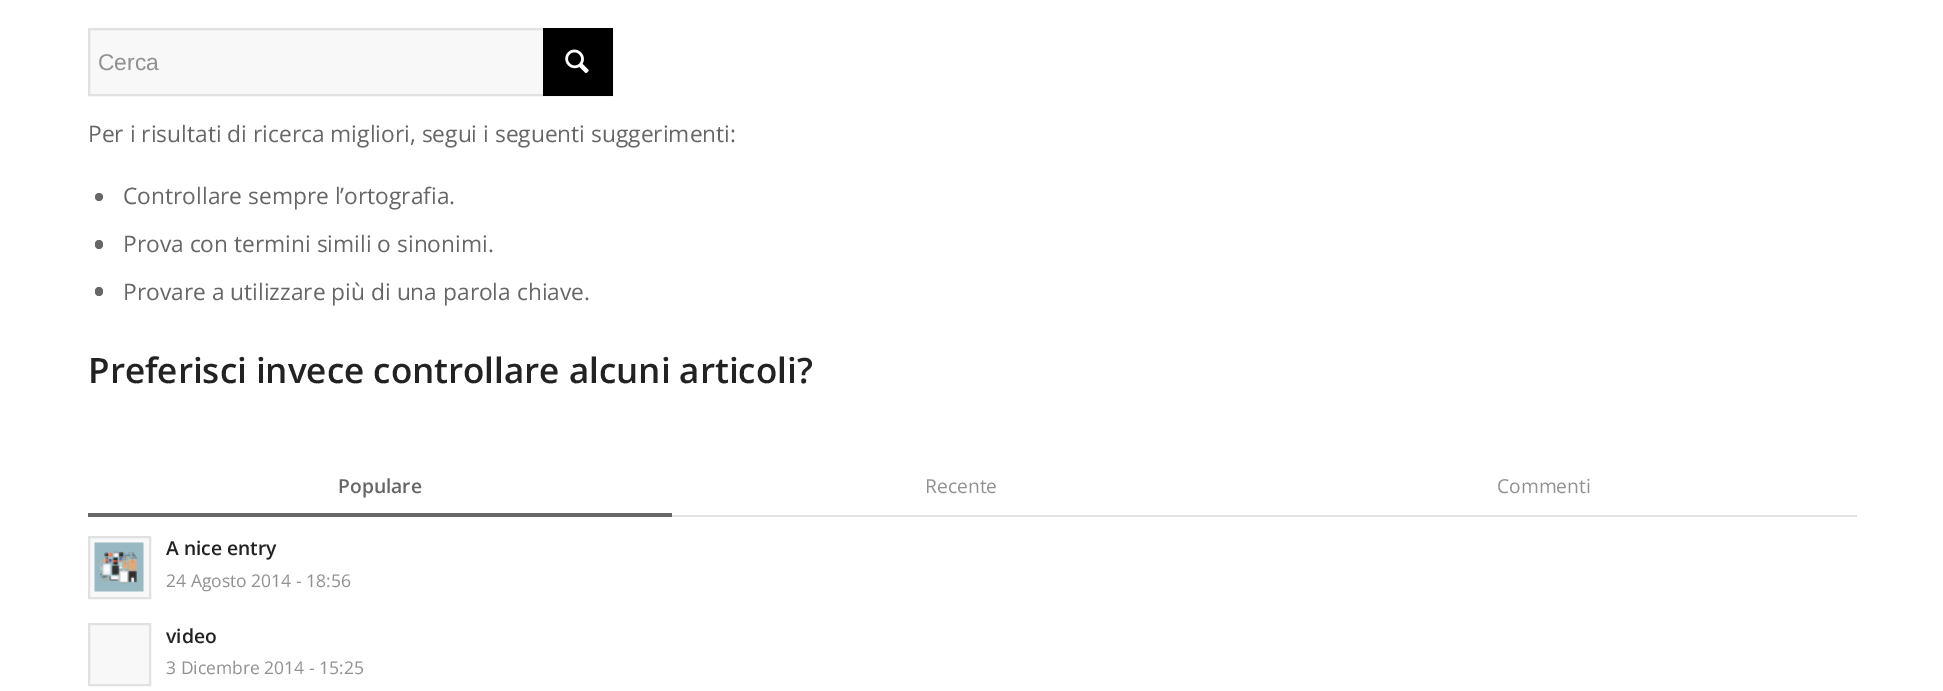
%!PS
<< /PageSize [1943 691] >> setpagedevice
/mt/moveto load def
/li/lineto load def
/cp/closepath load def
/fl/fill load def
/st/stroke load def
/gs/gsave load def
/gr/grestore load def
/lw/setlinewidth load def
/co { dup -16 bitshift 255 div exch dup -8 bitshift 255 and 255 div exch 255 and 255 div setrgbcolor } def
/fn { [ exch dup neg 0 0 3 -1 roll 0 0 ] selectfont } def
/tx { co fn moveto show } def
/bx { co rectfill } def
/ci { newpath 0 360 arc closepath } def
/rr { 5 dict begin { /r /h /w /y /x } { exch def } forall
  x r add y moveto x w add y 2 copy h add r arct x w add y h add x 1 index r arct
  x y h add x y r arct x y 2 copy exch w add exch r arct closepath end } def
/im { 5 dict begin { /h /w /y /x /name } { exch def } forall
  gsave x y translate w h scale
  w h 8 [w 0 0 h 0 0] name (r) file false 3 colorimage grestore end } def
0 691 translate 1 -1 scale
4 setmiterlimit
0 0 1943 691 16#FFFFFF bx
90 30 453 64 16#F8F8F8 bx
16#E1E1E1 co
2 lw
89 29 523 66 rectstroke
543 28 70 68 16#000000 bx
(media/1.raw) 565 49 24 25 im
16#666666 co
99 197 4 ci fl
95 240 8 9 4 rr fl
95 287 8 9 4 rr fl
672 515 1185 2 16#E1E1E1 bx
88 513 584 4 16#666666 bx
16#F8F8F8 co
89 537 mt 150 537 li 150 598 li 89 598 li cp gs fl gr
16#E1E1E1 co
st
(media/2.raw) 94 542 50 50 im
16#F8F8F8 co
89 624 mt 150 624 li 150 685 li 89 685 li cp gs fl gr
16#E1E1E1 co
st
(Cerca) 98 70 /LiberationSans-Regular 22.75 16#919191 tx
(Per i risultati di ricerca migliori, segui i seguenti suggerimenti:) 88 142 /OpenSans-Regular 22.75 16#666666 tx
(Controllare sempre l’ortografia.) 123 204 /OpenSans-Regular 22.75 16#666666 tx
(Prova con termini simili o sinonimi.) 123 252 /OpenSans-Regular 22.75 16#666666 tx
(Provare a utilizzare più di una parola chiave.) 123 300 /OpenSans-Regular 22.75 16#666666 tx
(Preferisci invece controllare alcuni articoli?) 88 383 /OpenSans-SemiBold 35 16#222222 tx
(Populare) 338 493 /OpenSans-SemiBold 19.25 16#666666 tx
(Recente) 925 493 /OpenSans-Regular 19.25 16#919191 tx
(Commenti) 1497 493 /OpenSans-Regular 19.25 16#919191 tx
(A nice entry) 166 555 /OpenSans-SemiBold 19.25 16#222222 tx
(24 Agosto 2014 - 18:56) 166 587 /OpenSans-Regular 17.5 16#919191 tx
(video) 166 643 /OpenSans-SemiBold 19.25 16#222222 tx
(3 Dicembre 2014 - 15:25) 166 674 /OpenSans-Regular 17.5 16#919191 tx
showpage
